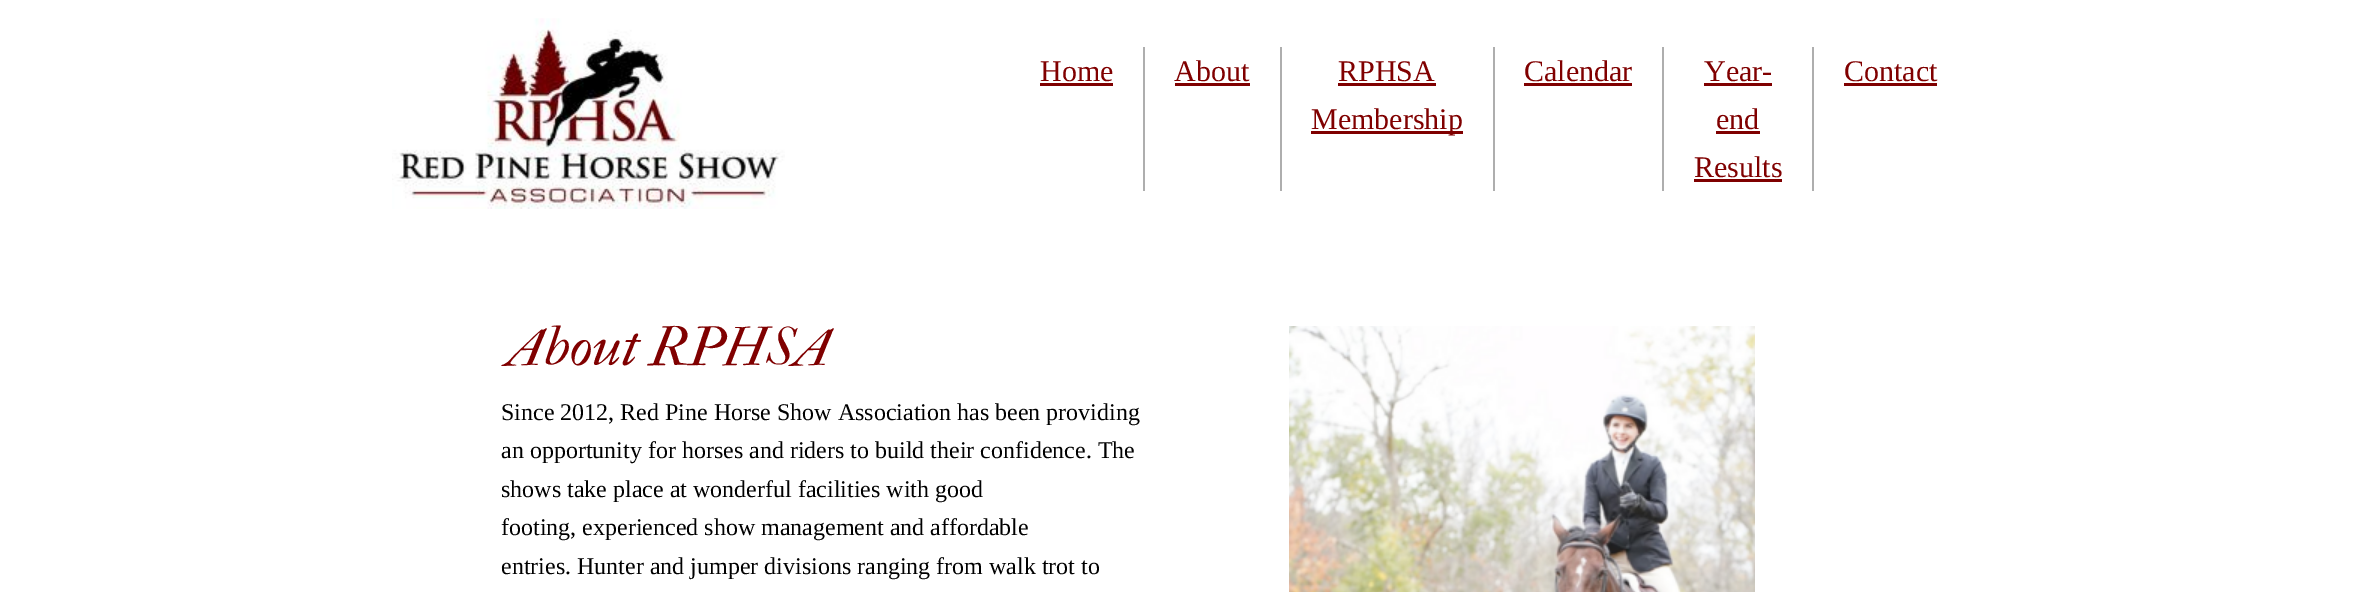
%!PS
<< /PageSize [2379 592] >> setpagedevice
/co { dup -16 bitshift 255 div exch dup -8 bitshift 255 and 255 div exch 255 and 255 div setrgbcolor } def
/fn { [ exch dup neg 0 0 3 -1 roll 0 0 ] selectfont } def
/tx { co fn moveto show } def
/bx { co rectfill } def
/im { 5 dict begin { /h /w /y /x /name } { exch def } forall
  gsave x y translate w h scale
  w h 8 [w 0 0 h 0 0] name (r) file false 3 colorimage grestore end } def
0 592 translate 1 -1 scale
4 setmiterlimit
0 0 2379 592 16#FFFFFF bx
(media/1.raw) 392 18 393 191 im
1143 47 2 144 16#AEAEAE bx
1040 83 73 3 16#7F0000 bx
1280 47 2 144 16#AEAEAE bx
1175 83 75 3 16#7F0000 bx
1493 47 2 144 16#AEAEAE bx
1338 83 98 3 16#7F0000 bx
1311 131 152 3 16#7F0000 bx
1662 47 2 144 16#AEAEAE bx
1524 83 108 3 16#7F0000 bx
1812 47 2 144 16#AEAEAE bx
1704 83 68 3 16#7F0000 bx
1716 131 44 3 16#7F0000 bx
1694 179 88 3 16#7F0000 bx
1844 83 93 3 16#7F0000 bx
(media/2.raw) 1289 326 466 266 im
(Home) 1040 81 /LiberationSerif-Regular 30 16#800000 tx
(About) 1174 81 /LiberationSerif-Regular 30 16#800000 tx
(RPHSA) 1338 81 /LiberationSerif-Regular 30 16#800000 tx
(Membership) 1311 129 /LiberationSerif-Regular 30 16#800000 tx
(Calendar) 1524 81 /LiberationSerif-Regular 30 16#800000 tx
(Year-) 1704 81 /LiberationSerif-Regular 30 16#800000 tx
(end) 1716 129 /LiberationSerif-Regular 30 16#800000 tx
(Results) 1694 177 /LiberationSerif-Regular 30 16#800000 tx
(Contact) 1844 81 /LiberationSerif-Regular 30 16#800000 tx
(About RPHSA) 507 365 /IMFELLFrenchCanon-Italic 54 16#800000 tx
(Since 2012, Red Pine Horse Show Association has been providing) 501 420 /LiberationSerif-Regular 24 16#000000 tx
(an opportunity for horses and riders to build their confidence. The) 501 458 /LiberationSerif-Regular 24 16#000000 tx
(shows take place at wonderful facilities with good) 501 497 /LiberationSerif-Regular 24 16#000000 tx
(footing, experienced show management and affordable) 501 535 /LiberationSerif-Regular 24 16#000000 tx
(entries. Hunter and jumper divisions ranging from walk trot to) 501 574 /LiberationSerif-Regular 24 16#000000 tx
showpage
